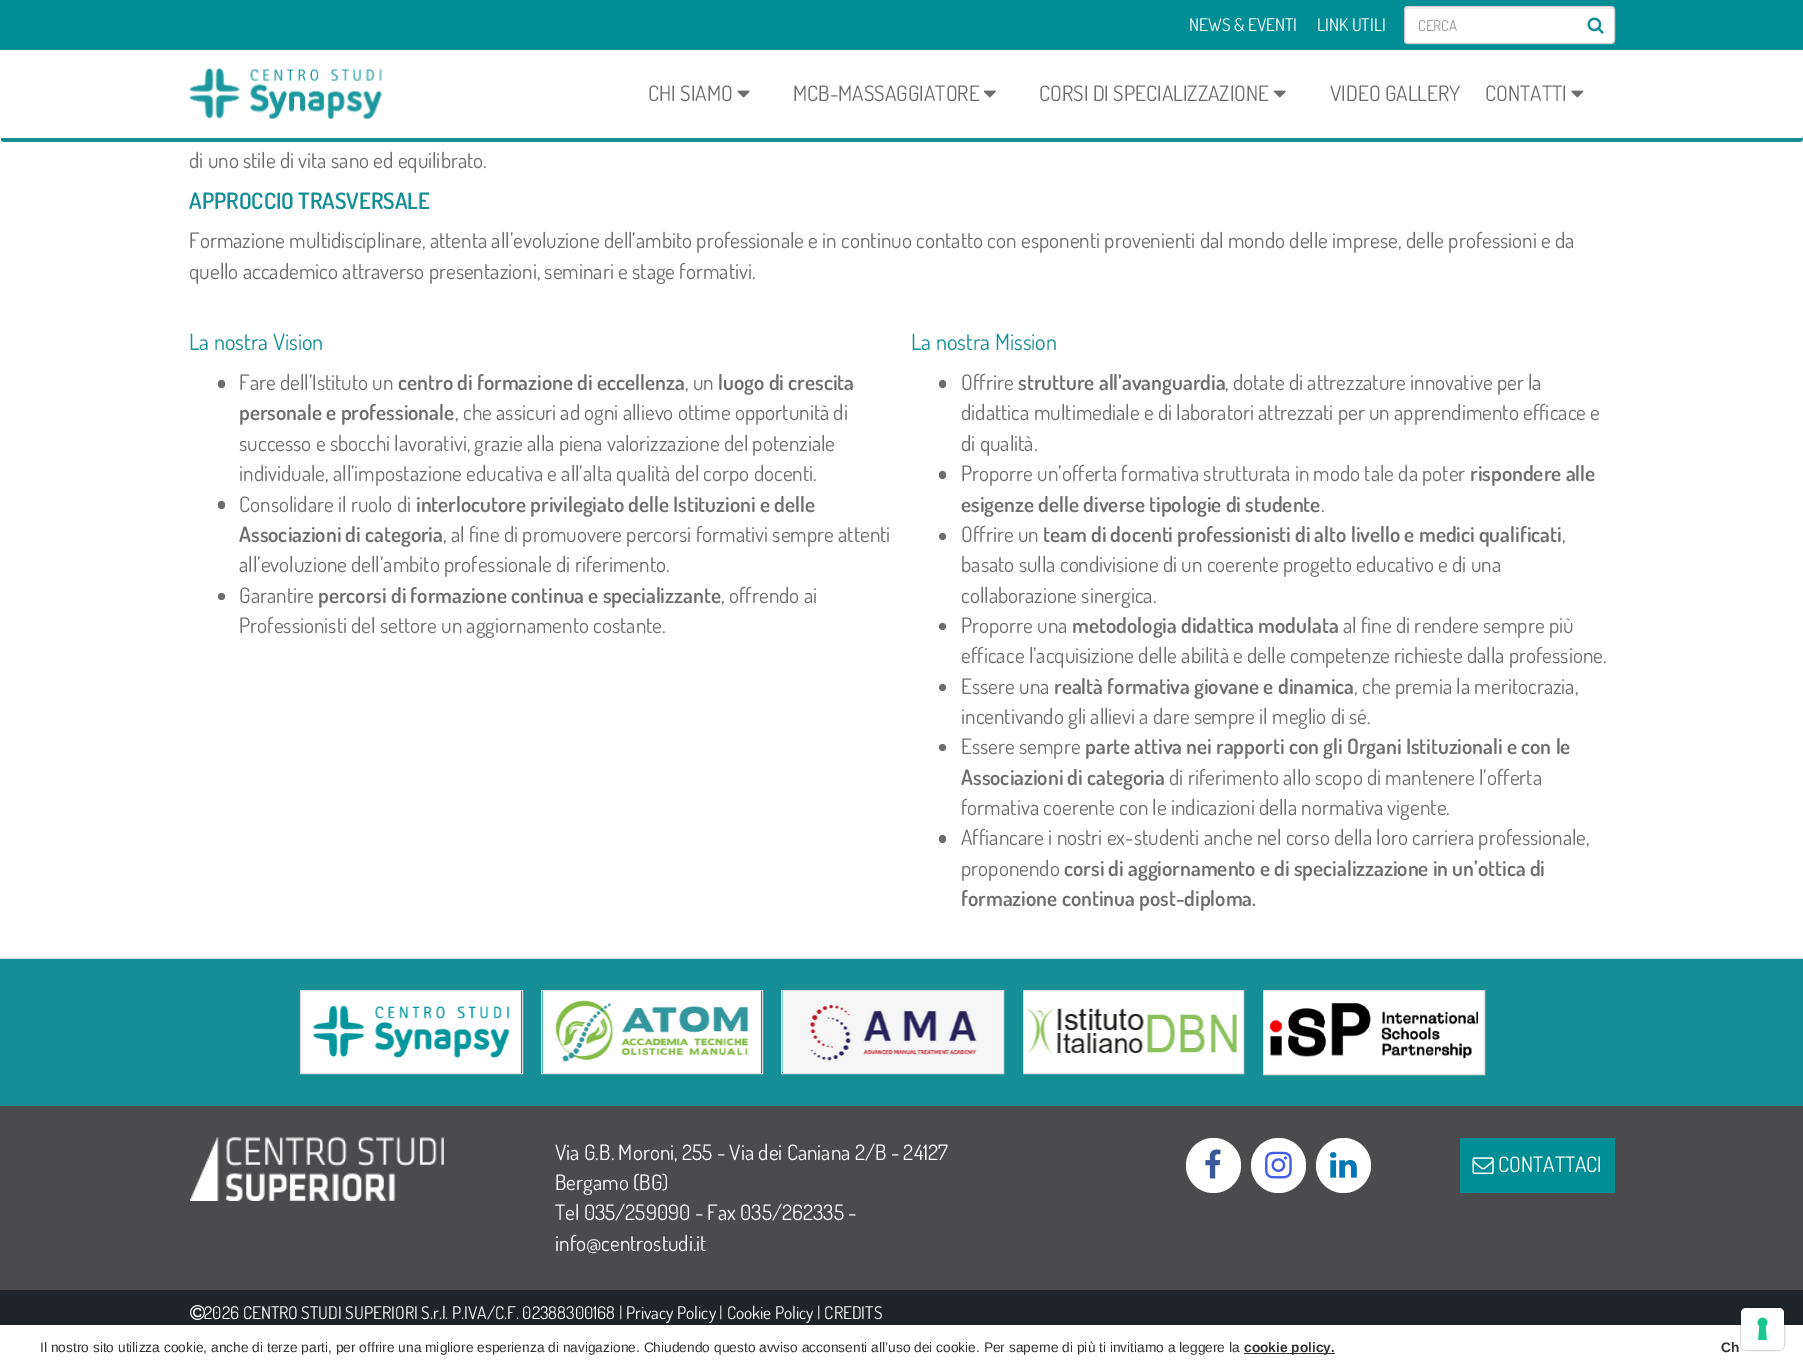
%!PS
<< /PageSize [1803 1370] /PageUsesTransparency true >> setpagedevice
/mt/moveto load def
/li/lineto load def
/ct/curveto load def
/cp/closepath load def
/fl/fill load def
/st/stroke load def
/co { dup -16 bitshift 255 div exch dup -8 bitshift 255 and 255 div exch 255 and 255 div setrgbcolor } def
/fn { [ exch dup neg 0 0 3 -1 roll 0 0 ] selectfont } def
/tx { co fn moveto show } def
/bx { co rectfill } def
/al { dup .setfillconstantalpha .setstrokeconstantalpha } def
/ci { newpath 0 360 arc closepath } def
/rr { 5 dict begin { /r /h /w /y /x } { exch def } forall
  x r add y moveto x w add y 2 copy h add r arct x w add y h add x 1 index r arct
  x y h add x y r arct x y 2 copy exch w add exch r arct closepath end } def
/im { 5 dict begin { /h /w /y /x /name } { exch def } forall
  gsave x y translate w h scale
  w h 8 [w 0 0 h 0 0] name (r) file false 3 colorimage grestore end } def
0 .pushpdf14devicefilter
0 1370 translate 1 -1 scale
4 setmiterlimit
0 0 1803 1370 16#FFFFFF bx
0 0 1803 50 16#008E96 bx
16#FFFFFF co
1404 6 211 38 4 rr fl
16#ECECEC co
1408 9 mt 1611 9 li 1613 9 1614 10 1614 11 ct 1614 9 1613 8 1612 8 ct 1408 8 li 1406 8 1405 9 1405 11 ct 1405 10 1406 9 1408 9 ct cp fl
16#CCCCCC co
1404.5 6.5 210 37 3.5 rr st
(media/1.raw) 1587 17 17 17 im
16#158E96 co
1 138 mt 1802 138 li 1802 136 li 1803 140 li 1802 141 1801 142 1799 142 ct 5 142 li 3 142 1 141 1 140 ct cp fl
(media/2.raw) 189 68 193 51 im
(media/3.raw) 737 90 13 8 im
(media/4.raw) 983 90 13 8 im
(media/4.raw) 1273 90 13 8 im
(media/5.raw) 1571 90 13 8 im
16#6D6D6D co
218 380 7 8 3.5 rr fl
218 501 7 8 3.5 rr fl
221.5 596.5 3.5 ci fl
939 380 7 8 3.5 rr fl
939 471 7 8 3.5 rr fl
942.5 536.5 3.5 ci fl
942.5 626.5 3.5 ci fl
942.5 687.5 3.5 ci fl
942.5 747.5 3.5 ci fl
939 835 7 8 3.5 rr fl
0 959 1803 147 16#158E96 bx
0 958 1803 1 16#DCDCDC bx
300.5 990.5 222 83 rectstroke
301 991 220 82 16#FFFFFF bx
(media/6.raw) 313 1005 197 53 im
16#DCDCDC co
541.5 990.5 221 83 rectstroke
543 991 218 82 16#FFFFFF bx
(media/7.raw) 555 1000 194 62 im
16#DCDCDC co
781.5 990.5 222 83 rectstroke
783 991 220 82 16#FFFFFF bx
(media/8.raw) 782 991 220 82 im
16#DCDCDC co
1023.5 990.5 220 83 rectstroke
1024 991 219 82 16#FFFFFF bx
(media/9.raw) 1026 1008 212 45 im
16#DCDCDC co
1263.5 990.5 221 84 rectstroke
1264 991 220 83 16#FFFFFF bx
(media/10.raw) 1263 991 215 82 im
0 1106 1803 184 16#4B4B4D bx
(media/11.raw) 190 1137 254 64 im
16#FFFFFF co
1213.5 1165.5 27.5 ci fl
(media/12.raw) 1205 1149 16 30 im
1278.5 1165.5 27.5 ci fl
(media/13.raw) 1265 1151 27 28 im
1343.5 1165.5 27.5 ci fl
(media/14.raw) 1330 1152 27 26 im
1460 1138 155 55 16#008E96 bx
(media/15.raw) 1472 1157 22 17 im
0 1290 1803 35 16#1F2428 bx
(media/16.raw) 190 1305 15 15 im
0.15 al
16#000000 co
1740.5 1306.5 44 44 5.5 rr st
1 al
16#FFFFFF co
1741 1308 43 42 5 rr fl
(media/17.raw) 1757 1317 11 23 im
1244 1353 91 1 16#333333 bx
(NEWS & EVENTI) 1189 31 /Dosis-Regular 17.5 16#FFFFFF tx
(LINK UTILI) 1317 31 /Dosis-Regular 17.5 16#FFFFFF tx
(CERCA) 1418 31 /Dosis-Regular 15 16#999999 tx
(CHI SIAMO) 648 101 /Dosis-Regular 21.25 16#6D6D6D tx
(MCB-MASSAGGIATORE) 793 101 /Dosis-Regular 21.25 16#6D6D6D tx
(CORSI DI SPECIALIZZAZIONE) 1039 101 /Dosis-Regular 21.25 16#6D6D6D tx
(VIDEO GALLERY) 1330 101 /Dosis-Regular 21.25 16#6D6D6D tx
(CONTATTI) 1485 101 /Dosis-Regular 21.25 16#6D6D6D tx
(di uno stile di vita sano ed equilibrato.) 189 168 /Dosis-Regular 21.25 16#6D6D6D tx
(APPROCCIO TRASVERSALE) 189 209 /Dosis-SemiBold 22.5 16#158E96 tx
(Formazione multidisciplinare, attenta all’evoluzione dell’ambito professionale e in continuo contatto con esponenti provenienti dal mondo delle imprese, delle professioni e da) 189 248 /Dosis-Regular 21.25 16#6D6D6D tx
(quello accademico attraverso presentazioni, seminari e stage formativi.) 189 279 /Dosis-Regular 21.25 16#6D6D6D tx
(La nostra Vision) 189 350 /Dosis-Regular 22.5 16#158E96 tx
(Fare dell’Istituto un) 239 390 /Dosis-Regular 21.25 16#6D6D6D tx
(centro di formazione di eccellenza) 398 390 /Dosis-SemiBold 21.25 16#6D6D6D tx
(, un) 685 390 /Dosis-Regular 21.25 16#6D6D6D tx
(luogo di crescita) 718 390 /Dosis-SemiBold 21.25 16#6D6D6D tx
(personale e professionale) 239 420 /Dosis-SemiBold 21.25 16#6D6D6D tx
(, che assicuri ad ogni allievo ottime opportunità di) 455 420 /Dosis-Regular 21.25 16#6D6D6D tx
(successo e sbocchi lavorativi, grazie alla piena valorizzazione del potenziale) 239 451 /Dosis-Regular 21.25 16#6D6D6D tx
(individuale, all’impostazione educativa e all’alta qualità del corpo docenti.) 239 481 /Dosis-Regular 21.25 16#6D6D6D tx
(Consolidare il ruolo di) 239 512 /Dosis-Regular 21.25 16#6D6D6D tx
(interlocutore privilegiato delle Istituzioni e delle) 416 512 /Dosis-SemiBold 21.25 16#6D6D6D tx
(Associazioni di categoria) 239 542 /Dosis-SemiBold 21.25 16#6D6D6D tx
(, al fine di promuovere percorsi formativi sempre attenti) 443 542 /Dosis-Regular 21.25 16#6D6D6D tx
(all’evoluzione dell’ambito professionale di riferimento.) 239 572 /Dosis-Regular 21.25 16#6D6D6D tx
(Garantire) 239 603 /Dosis-Regular 21.25 16#6D6D6D tx
(percorsi di formazione continua e specializzante) 318 603 /Dosis-SemiBold 21.25 16#6D6D6D tx
(, offrendo ai) 721 603 /Dosis-Regular 21.25 16#6D6D6D tx
(Professionisti del settore un aggiornamento costante.) 239 633 /Dosis-Regular 21.25 16#6D6D6D tx
(La nostra Mission) 911 350 /Dosis-Regular 22.5 16#158E96 tx
(Offrire) 961 390 /Dosis-Regular 21.25 16#6D6D6D tx
(strutture all’avanguardia) 1018 390 /Dosis-SemiBold 21.25 16#6D6D6D tx
(, dotate di attrezzature innovative per la) 1225 390 /Dosis-Regular 21.25 16#6D6D6D tx
(didattica multimediale e di laboratori attrezzati per un apprendimento efficace e) 961 420 /Dosis-Regular 21.25 16#6D6D6D tx
(di qualità.) 961 451 /Dosis-Regular 21.25 16#6D6D6D tx
(Proporre un’offerta formativa strutturata in modo tale da poter) 961 481 /Dosis-Regular 21.25 16#6D6D6D tx
(rispondere alle) 1470 481 /Dosis-SemiBold 21.25 16#6D6D6D tx
(esigenze delle diverse tipologie di studente) 961 512 /Dosis-SemiBold 21.25 16#6D6D6D tx
(.) 1321 512 /Dosis-Regular 21.25 16#6D6D6D tx
(Offrire un) 961 542 /Dosis-Regular 21.25 16#6D6D6D tx
(team di docenti professionisti di alto livello e medici qualificati) 1043 542 /Dosis-SemiBold 21.25 16#6D6D6D tx
(,) 1562 542 /Dosis-Regular 21.25 16#6D6D6D tx
(basato sulla condivisione di un coerente progetto educativo e di una) 961 572 /Dosis-Regular 21.25 16#6D6D6D tx
(collaborazione sinergica.) 961 603 /Dosis-Regular 21.25 16#6D6D6D tx
(Proporre una) 961 633 /Dosis-Regular 21.25 16#6D6D6D tx
(metodologia didattica modulata) 1072 633 /Dosis-SemiBold 21.25 16#6D6D6D tx
(al fine di rendere sempre più) 1343 633 /Dosis-Regular 21.25 16#6D6D6D tx
(efficace l’acquisizione delle abilità e delle competenze richieste dalla professione.) 961 663 /Dosis-Regular 21.25 16#6D6D6D tx
(Essere una) 961 694 /Dosis-Regular 21.25 16#6D6D6D tx
(realtà formativa giovane e dinamica) 1054 694 /Dosis-SemiBold 21.25 16#6D6D6D tx
(, che premia la meritocrazia,) 1354 694 /Dosis-Regular 21.25 16#6D6D6D tx
(incentivando gli allievi a dare sempre il meglio di sé.) 961 724 /Dosis-Regular 21.25 16#6D6D6D tx
(Essere sempre) 961 754 /Dosis-Regular 21.25 16#6D6D6D tx
(parte attiva nei rapporti con gli Organi Istituzionali e con le) 1085 754 /Dosis-SemiBold 21.25 16#6D6D6D tx
(Associazioni di categoria) 961 785 /Dosis-SemiBold 21.25 16#6D6D6D tx
(di riferimento allo scopo di mantenere l’offerta) 1169 785 /Dosis-Regular 21.25 16#6D6D6D tx
(formativa coerente con le indicazioni della normativa vigente.) 961 815 /Dosis-Regular 21.25 16#6D6D6D tx
(Affiancare i nostri ex-studenti anche nel corso della loro carriera professionale,) 961 845 /Dosis-Regular 21.25 16#6D6D6D tx
(proponendo) 961 876 /Dosis-Regular 21.25 16#6D6D6D tx
(corsi di aggiornamento e di specializzazione in un’ottica di) 1064 876 /Dosis-SemiBold 21.25 16#6D6D6D tx
(formazione continua post-diploma.) 961 906 /Dosis-SemiBold 21.25 16#6D6D6D tx
(Via G.B. Moroni, 255 - Via dei Caniana 2/B - 24127) 555 1160 /Dosis-Regular 21.25 16#FFFFFF tx
(Bergamo \(BG\)) 555 1190 /Dosis-Regular 21.25 16#FFFFFF tx
(Tel 035/259090 - Fax 035/262335 -) 555 1220 /Dosis-Regular 21.25 16#FFFFFF tx
(info@centrostudi.it) 555 1251 /Dosis-Regular 21.25 16#FFFFFF tx
(CONTATTACI) 1498 1172 /Dosis-Regular 21.25 16#FFFFFF tx
(2026 CENTRO STUDI SUPERIORI S.r.l. P.IVA/C.F. 02388300168 | Privacy Policy | Cookie Policy | CREDITS) 204 1319 /Dosis-Regular 17.5 16#FFFFFF tx
(Il nostro sito utilizza cookie, anche di terze parti, per offrire una migliore esperienza di navigazione. Chiudendo questo avviso acconsenti all’uso dei cookie. Per saperne di più ti invitiamo a leggere la) 40 1352 /LiberationSans-Regular 13.75 16#333333 tx
(cookie policy.) 1244 1352 /LiberationSans-Bold 13.75 16#333333 tx
(Ch) 1721 1352 /LiberationSans-Bold 13.75 16#333333 tx
.poppdf14devicefilter showpage
